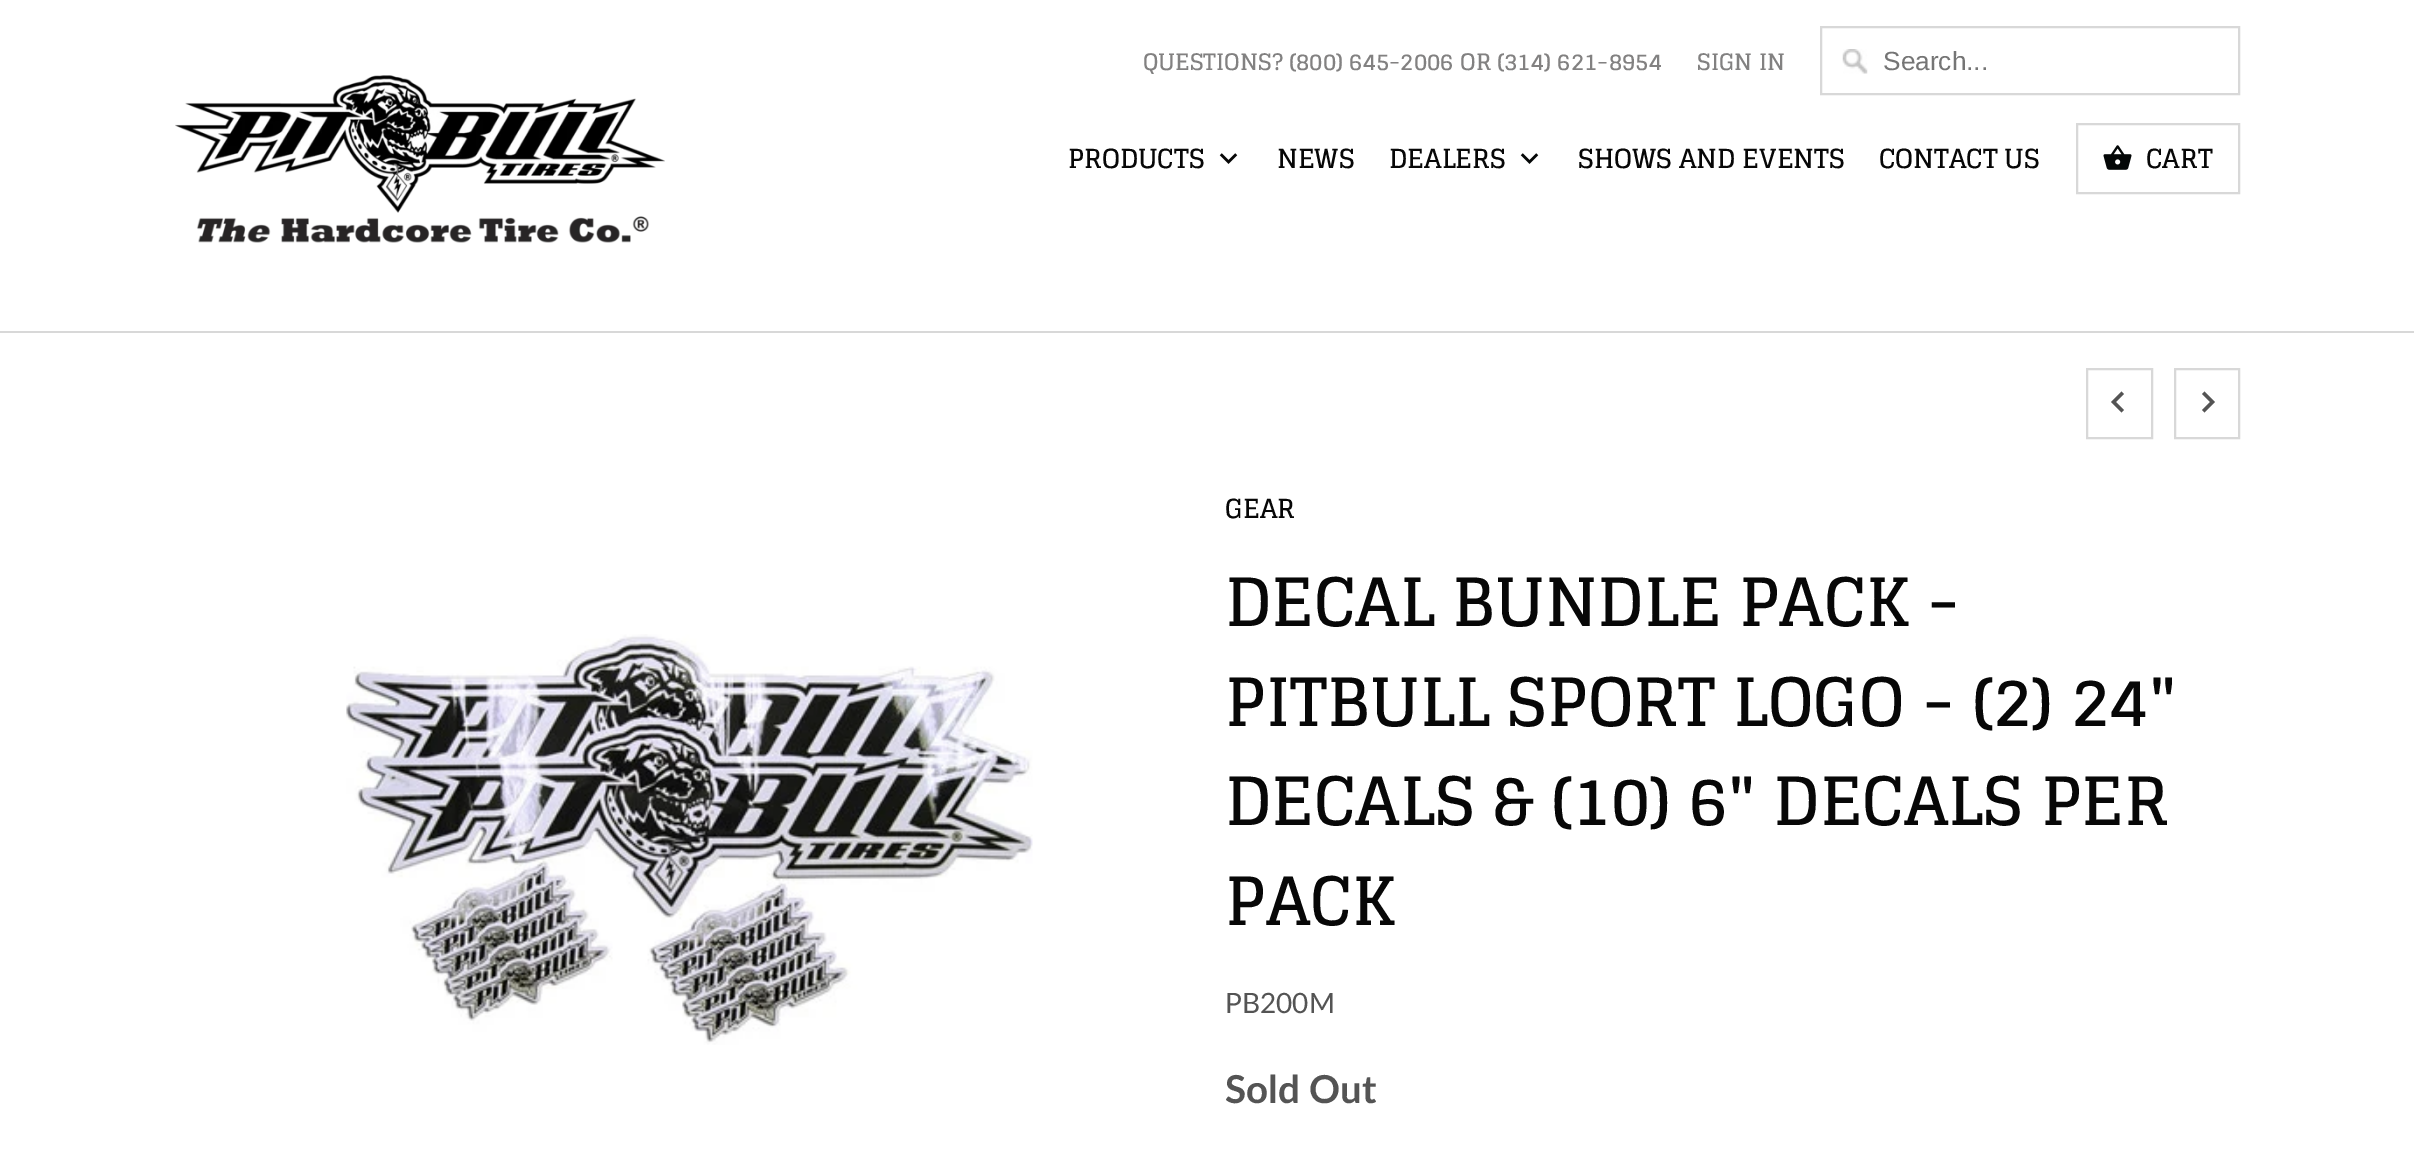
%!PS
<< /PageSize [2414 1173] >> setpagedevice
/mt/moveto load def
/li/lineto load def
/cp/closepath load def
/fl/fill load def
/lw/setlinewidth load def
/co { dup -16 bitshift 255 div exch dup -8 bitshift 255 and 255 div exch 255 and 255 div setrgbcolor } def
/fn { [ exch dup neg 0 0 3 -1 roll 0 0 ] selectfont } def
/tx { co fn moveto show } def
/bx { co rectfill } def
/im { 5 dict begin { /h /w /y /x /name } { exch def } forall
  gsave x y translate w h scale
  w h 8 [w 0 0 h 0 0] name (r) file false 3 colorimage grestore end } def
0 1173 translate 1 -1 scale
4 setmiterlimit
0 0 2414 1173 16#FFFFFF bx
0 331 2414 2 16#D8D8D8 bx
(media/1.raw) 175 75 490 168 im
(media/2.raw) 1842 49 26 25 im
2 lw
1821 27 418 67 rectstroke
(media/3.raw) 1219 153 19 11 im
(media/4.raw) 1520 153 19 11 im
2077 124 162 69 rectstroke
(media/5.raw) 2103 145 29 25 im
2087 369 65 69 rectstroke
16#545454 co
2124 410 mt 2116 402 li 2124 394 li 2121.5 391.5 li 2111 402 li 2121.5 412.5 li cp fl
16#D8D8D8 co
2175 369 64 69 rectstroke
16#545454 co
2204.5 391.5 mt 2202 394 li 2210 402 li 2202 410 li 2204.5 412.5 li 2215 402 li cp fl
(media/6.raw) 346 634 687 411 im
(QUESTIONS? \(800\) 645-2006 OR \(314\) 621-8954) 1143 70 /Glegoo-Bold 22.75 16#828181 tx
(SIGN IN) 1697 70 /Glegoo-Bold 22.75 16#828181 tx
(Search...) 1883 70 /LiberationSans-Regular 26.25 16#757575 tx
(PRODUCTS) 1068 168 /Glegoo-Bold 26.25 16#070707 tx
(NEWS) 1277 168 /Glegoo-Bold 26.25 16#070707 tx
(DEALERS) 1389 168 /Glegoo-Bold 26.25 16#070707 tx
(SHOWS AND EVENTS) 1578 168 /Glegoo-Bold 26.25 16#070707 tx
(CONTACT US) 1879 168 /Glegoo-Bold 26.25 16#070707 tx
(CART) 2146 168 /Glegoo-Bold 26.25 16#070707 tx
(GEAR) 1225 518 /Glegoo-Bold 26.25 16#070707 tx
(DECAL BUNDLE PACK -) 1225 626 /Glegoo-Bold 66.5 16#070707 tx
(PITBULL SPORT LOGO - \(2\) 24") 1225 726 /Glegoo-Bold 66.5 16#070707 tx
(DECALS & \(10\) 6" DECALS PER) 1225 825 /Glegoo-Bold 66.5 16#070707 tx
(PACK) 1225 925 /Glegoo-Bold 66.5 16#070707 tx
(PB200M) 1225 1013 /Lato-Regular 28 16#545454 tx
(Sold Out) 1225 1103 /Lato-Bold 38.5 16#545454 tx
showpage
